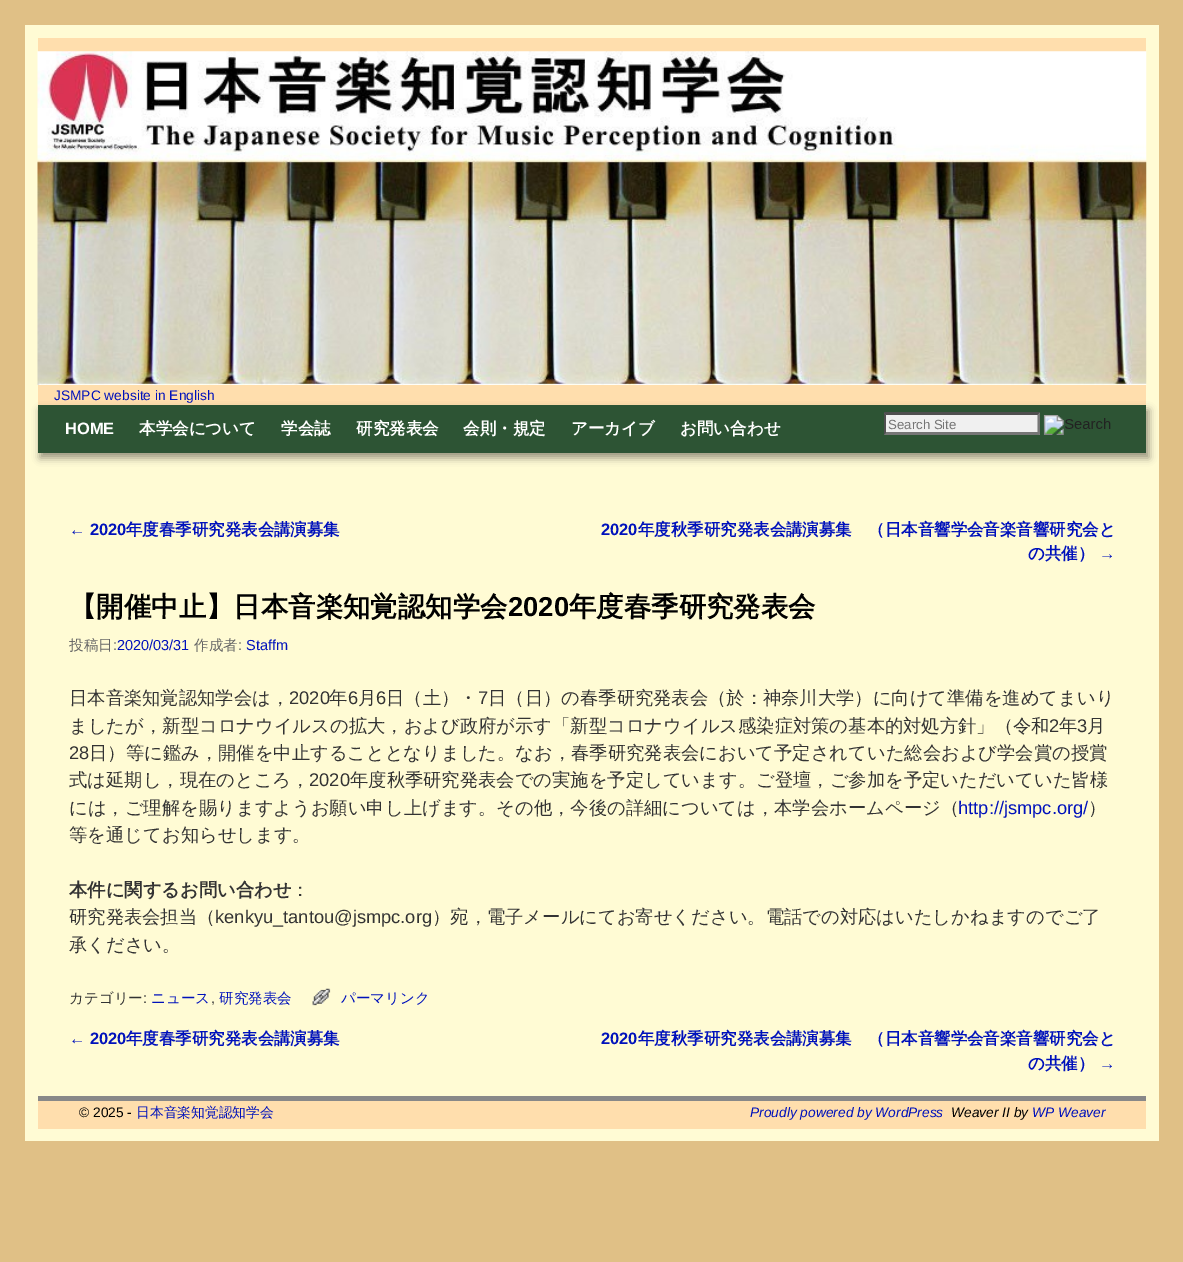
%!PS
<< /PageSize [1183 1262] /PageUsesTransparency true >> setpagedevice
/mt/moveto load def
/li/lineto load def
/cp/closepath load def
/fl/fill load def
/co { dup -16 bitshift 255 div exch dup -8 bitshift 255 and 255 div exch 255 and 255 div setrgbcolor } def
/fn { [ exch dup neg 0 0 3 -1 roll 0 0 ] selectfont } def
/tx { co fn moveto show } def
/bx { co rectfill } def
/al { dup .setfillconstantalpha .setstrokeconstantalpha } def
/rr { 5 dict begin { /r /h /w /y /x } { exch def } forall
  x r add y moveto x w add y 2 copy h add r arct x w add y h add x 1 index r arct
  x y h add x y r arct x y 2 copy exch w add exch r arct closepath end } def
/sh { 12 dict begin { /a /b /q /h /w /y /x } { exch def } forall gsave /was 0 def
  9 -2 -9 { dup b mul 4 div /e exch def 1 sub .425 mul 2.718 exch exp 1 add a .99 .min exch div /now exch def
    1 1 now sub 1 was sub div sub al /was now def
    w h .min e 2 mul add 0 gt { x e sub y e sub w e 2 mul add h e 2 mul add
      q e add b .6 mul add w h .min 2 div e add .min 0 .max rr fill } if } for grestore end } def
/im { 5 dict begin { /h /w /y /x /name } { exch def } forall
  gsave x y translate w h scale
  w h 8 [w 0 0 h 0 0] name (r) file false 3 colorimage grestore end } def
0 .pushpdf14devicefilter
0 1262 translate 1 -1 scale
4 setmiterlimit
0 0 1183 1262 16#E0C086 bx
25 25 1134 1116 16#FFFBD4 bx
38 38 1108 367 16#FFDEAD bx
(media/1.raw) 37 51 1110 334 im
16#000000 co
40 410 1109 48 0 4 .4 sh
38 405 1108 48 16#2D5434 bx
884 413 156 22 16#F0F0F0 bx
16#4F4F4F co
884 412 mt 1040 412 li 1038 415 li 886 415 li cp fl
16#767676 co
1040 412.5 mt 1040 435 li 1037.5 432.5 li 1037.5 415 li cp fl
1040 435 mt 884 435 li 886 432 li 1038 432 li cp fl
16#4F4F4F co
884 435 mt 884 412.5 li 886 415 li 886 432.5 li cp fl
(media/2.raw) 1043 415 68 20 im
(media/3.raw) 312 988 19 18 im
38 1101 1108 28 16#FFDEAD bx
38 1096 1108 5 16#888888 bx
(JSMPC website in English) 54 400 /LiberationSans-Regular 13.75 16#0011BB tx
(HOME) 65 434 /LiberationSans-Bold 16.5 16#FFFFFF tx
(本学会について) 139 434 /WenQuanYiZenHei-Bold 16.5 16#FFFFFF tx
(学会誌) 281 434 /WenQuanYiZenHei-Bold 16.5 16#FFFFFF tx
(研究発表会) 356 434 /WenQuanYiZenHei-Bold 16.5 16#FFFFFF tx
(会則・規定) 463 434 /WenQuanYiZenHei-Bold 16.5 16#FFFFFF tx
(アーカイブ) 571 434 /WenQuanYiZenHei-Bold 16.5 16#FFFFFF tx
(お問い合わせ) 680 434 /WenQuanYiZenHei-Bold 16.5 16#FFFFFF tx
(Search Site) 888 429 /LiberationSans-Regular 13.25 16#757575 tx
(←) 69 535 /LiberationSans-Regular 16.45 16#0011BB tx
(2020) 90 535 /LiberationSans-Bold 16.45 16#0011BB tx
(年度春季研究発表会講演募集) 126 535 /WenQuanYiZenHei-Bold 16.45 16#0011BB tx
(2020) 601 535 /LiberationSans-Bold 16.45 16#0011BB tx
(年度秋季研究発表会講演募集　（日本音響学会音楽音響研究会と) 638 535 /WenQuanYiZenHei-Bold 16.45 16#0011BB tx
(の共催）) 1028 559 /WenQuanYiZenHei-Bold 16.45 16#0011BB tx
(→) 1099 559 /LiberationSans-Regular 16.45 16#0011BB tx
(【開催中止】日本音楽知覚認知学会) 69 616 /WenQuanYiZenHei-Bold 27.4 16#000000 tx
(2020) 508 616 /LiberationSans-Bold 27.4 16#000000 tx
(年度春季研究発表会) 569 616 /WenQuanYiZenHei-Bold 27.4 16#000000 tx
(投稿日) 69 650 /WenQuanYiZenHei-Medium 14.5 16#666666 tx
(:) 113 650 /LiberationSans-Regular 14.5 16#666666 tx
(2020/03/31) 117 650 /LiberationSans-Regular 14.5 16#0011BB tx
(作成者) 194 650 /WenQuanYiZenHei-Medium 14.5 16#666666 tx
(:) 238 650 /LiberationSans-Regular 14.5 16#666666 tx
(Staffm) 246 650 /LiberationSans-Regular 14.5 16#0011BB tx
(日本音楽知覚認知学会は，) 69 704 /WenQuanYiZenHei-Medium 18.3 16#333333 tx
(2020) 289 704 /LiberationSans-Regular 18.3 16#333333 tx
(年) 329 704 /WenQuanYiZenHei-Medium 18.3 16#333333 tx
(6) 348 704 /LiberationSans-Regular 18.3 16#333333 tx
(月) 358 704 /WenQuanYiZenHei-Medium 18.3 16#333333 tx
(6) 376 704 /LiberationSans-Regular 18.3 16#333333 tx
(日（土）・) 386 704 /WenQuanYiZenHei-Medium 18.3 16#333333 tx
(7) 478 704 /LiberationSans-Regular 18.3 16#333333 tx
(日（日）の春季研究発表会（於：神奈川大学）に向けて準備を進めてまいり) 488 704 /WenQuanYiZenHei-Medium 18.3 16#333333 tx
(ましたが，新型コロナウイルスの拡大，および政府が示す「新型コロナウイルス感染症対策の基本的対処方針」（令和) 69 732 /WenQuanYiZenHei-Medium 18.3 16#333333 tx
(2) 1049 732 /LiberationSans-Regular 18.3 16#333333 tx
(年) 1059 732 /WenQuanYiZenHei-Medium 18.3 16#333333 tx
(3) 1077 732 /LiberationSans-Regular 18.3 16#333333 tx
(月) 1087 732 /WenQuanYiZenHei-Medium 18.3 16#333333 tx
(28) 69 759 /LiberationSans-Regular 18.3 16#333333 tx
(日）等に鑑み，開催を中止することとなりました。なお，春季研究発表会において予定されていた総会および学会賞の授賞) 89 759 /WenQuanYiZenHei-Medium 18.3 16#333333 tx
(式は延期し，現在のところ，) 69 786 /WenQuanYiZenHei-Medium 18.3 16#333333 tx
(2020) 309 786 /LiberationSans-Regular 18.3 16#333333 tx
(年度秋季研究発表会での実施を予定しています。ご登壇，ご参加を予定いただいていた皆様) 350 786 /WenQuanYiZenHei-Medium 18.3 16#333333 tx
(には，ご理解を賜りますようお願い申し上げます。その他，今後の詳細については，本学会ホームページ（) 69 814 /WenQuanYiZenHei-Medium 18.3 16#333333 tx
(http://jsmpc.org/) 958 814 /LiberationSans-Regular 18.3 16#0011BB tx
(）) 1088 814 /WenQuanYiZenHei-Medium 18.3 16#333333 tx
(等を通じてお知らせします。) 69 841 /WenQuanYiZenHei-Medium 18.3 16#333333 tx
(本件に関するお問い合わせ) 69 896 /WenQuanYiZenHei-Bold 18.3 16#333333 tx
(：) 291 896 /WenQuanYiZenHei-Medium 18.3 16#333333 tx
(研究発表会担当（) 69 923 /WenQuanYiZenHei-Medium 18.3 16#333333 tx
(kenkyu_tantou@jsmpc.org) 215 923 /LiberationSans-Regular 18.3 16#333333 tx
(）宛，電子メールにてお寄せください。電話での対応はいたしかねますのでご了) 432 923 /WenQuanYiZenHei-Medium 18.3 16#333333 tx
(承ください。) 69 951 /WenQuanYiZenHei-Medium 18.3 16#333333 tx
(カテゴリー) 69 1003 /WenQuanYiZenHei-Medium 14.5 16#333333 tx
(:) 143 1003 /LiberationSans-Regular 14.5 16#333333 tx
(ニュース) 151 1003 /WenQuanYiZenHei-Medium 14.5 16#0011BB tx
(,) 211 1003 /LiberationSans-Regular 14.5 16#333333 tx
(研究発表会) 219 1003 /WenQuanYiZenHei-Medium 14.5 16#0011BB tx
(パーマリンク) 341 1003 /WenQuanYiZenHei-Medium 14.5 16#0011BB tx
(←) 69 1044 /LiberationSans-Regular 16.45 16#0011BB tx
(2020) 90 1044 /LiberationSans-Bold 16.45 16#0011BB tx
(年度春季研究発表会講演募集) 126 1044 /WenQuanYiZenHei-Bold 16.45 16#0011BB tx
(2020) 601 1044 /LiberationSans-Bold 16.45 16#0011BB tx
(年度秋季研究発表会講演募集　（日本音響学会音楽音響研究会と) 638 1044 /WenQuanYiZenHei-Bold 16.45 16#0011BB tx
(の共催）) 1028 1069 /WenQuanYiZenHei-Bold 16.45 16#0011BB tx
(→) 1099 1069 /LiberationSans-Regular 16.45 16#0011BB tx
(© 2025 -) 79 1117 /LiberationSans-Regular 13.75 16#000000 tx
(日本音楽知覚認知学会) 136 1117 /WenQuanYiZenHei-Medium 13.75 16#0011BB tx
(Proudly powered by WordPress) 750 1117 /LiberationSans-Italic 13.75 16#0011BB tx
(Weaver II by) 951 1117 /LiberationSans-Italic 13.75 16#000000 tx
(WP Weaver) 1032 1117 /LiberationSans-Italic 13.75 16#0011BB tx
.poppdf14devicefilter showpage
